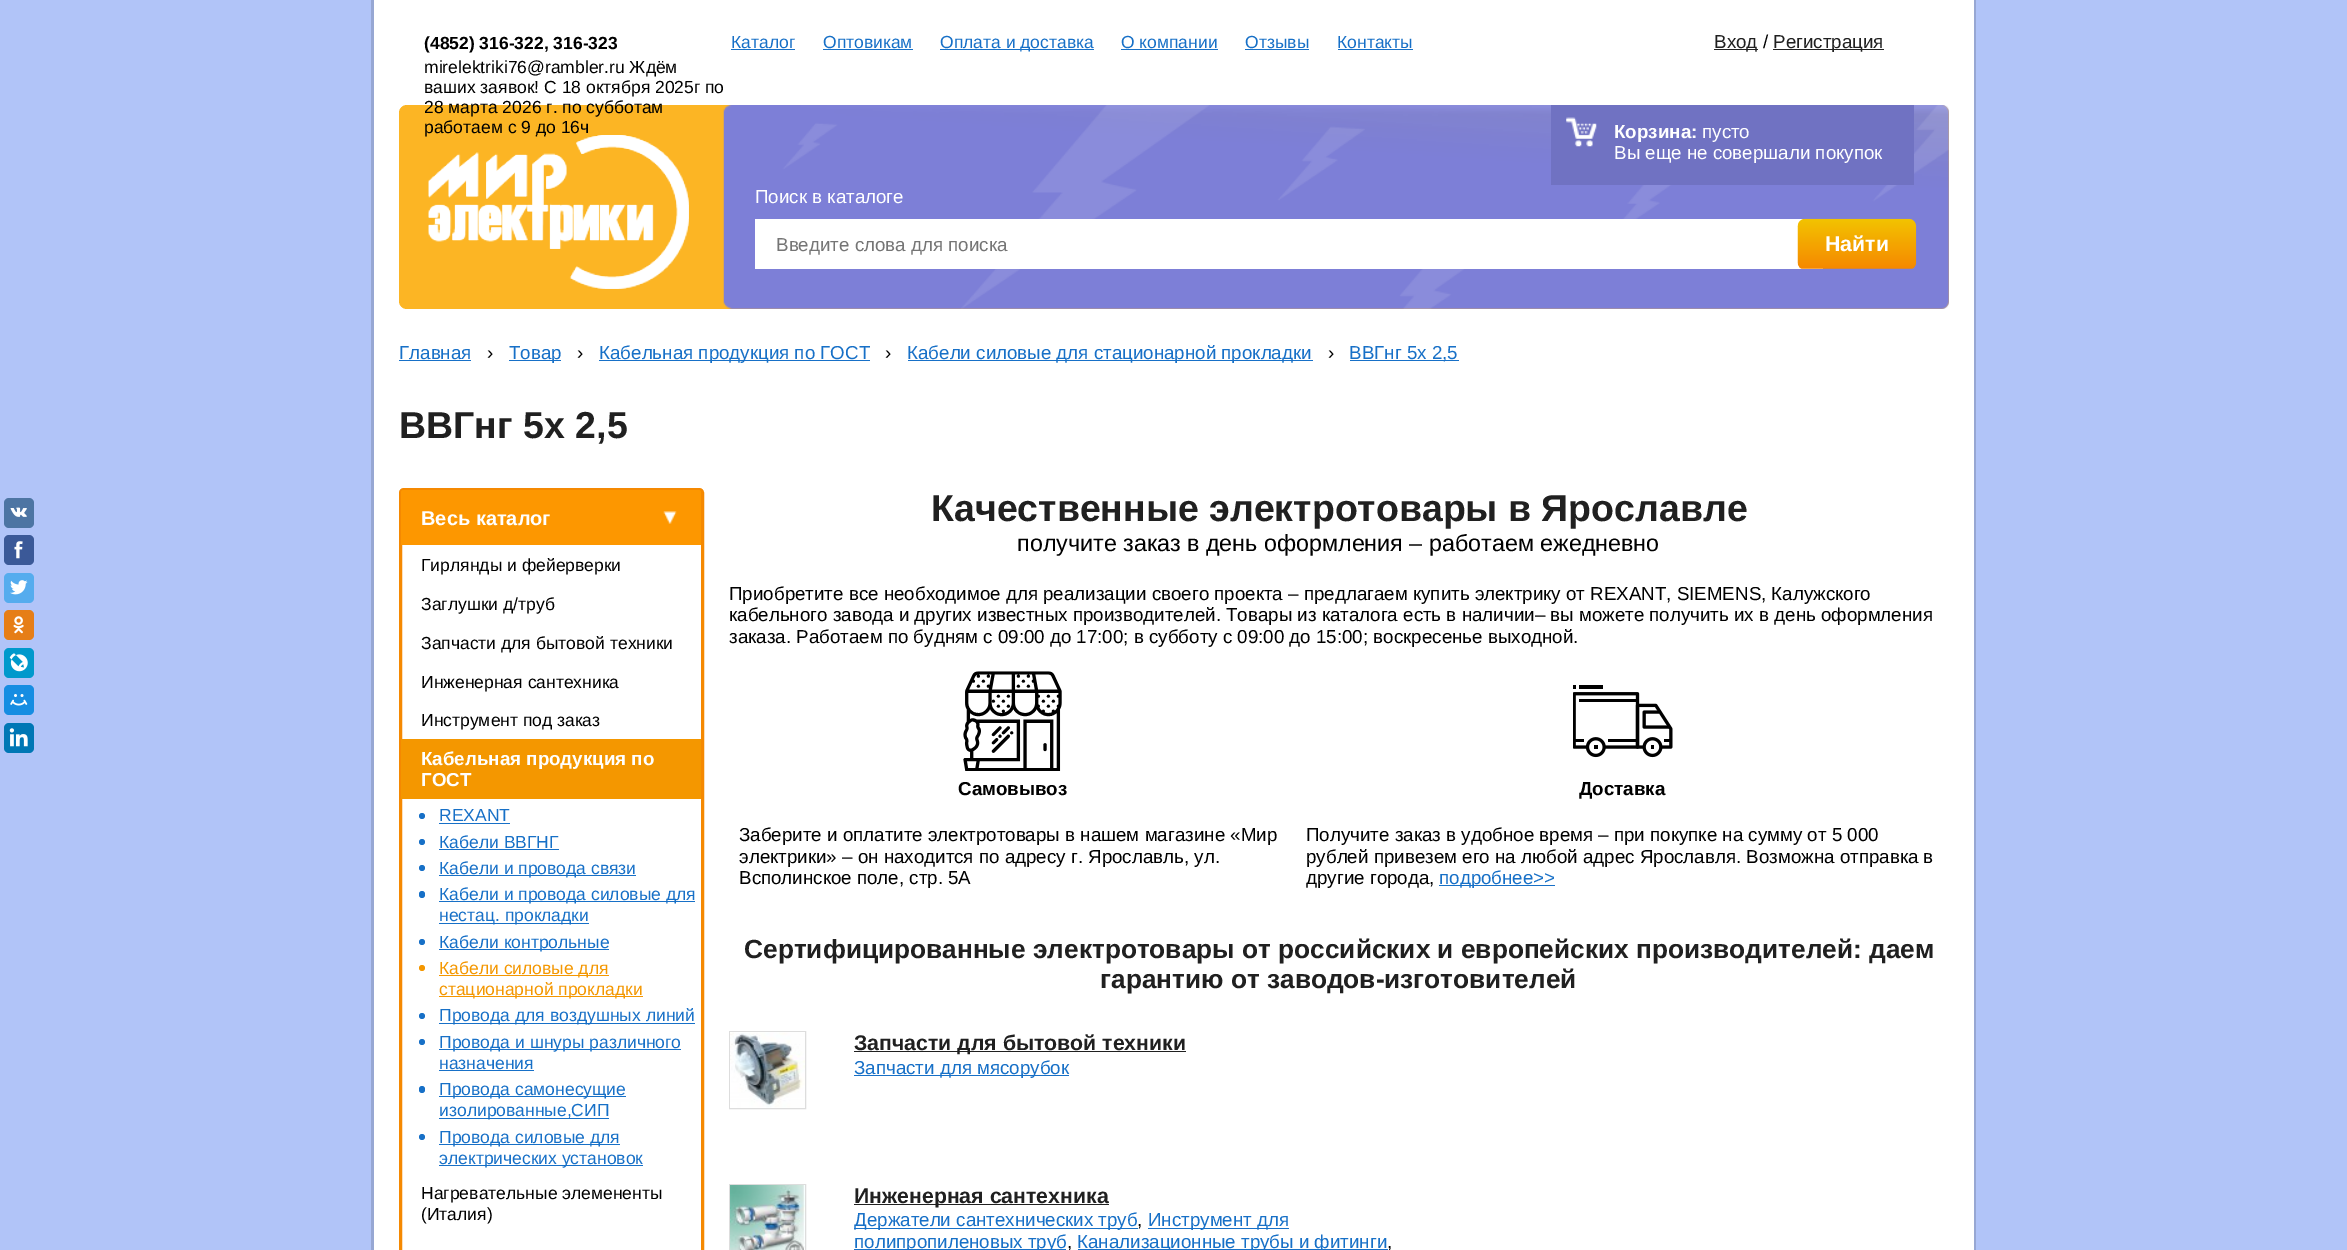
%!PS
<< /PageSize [2347 1250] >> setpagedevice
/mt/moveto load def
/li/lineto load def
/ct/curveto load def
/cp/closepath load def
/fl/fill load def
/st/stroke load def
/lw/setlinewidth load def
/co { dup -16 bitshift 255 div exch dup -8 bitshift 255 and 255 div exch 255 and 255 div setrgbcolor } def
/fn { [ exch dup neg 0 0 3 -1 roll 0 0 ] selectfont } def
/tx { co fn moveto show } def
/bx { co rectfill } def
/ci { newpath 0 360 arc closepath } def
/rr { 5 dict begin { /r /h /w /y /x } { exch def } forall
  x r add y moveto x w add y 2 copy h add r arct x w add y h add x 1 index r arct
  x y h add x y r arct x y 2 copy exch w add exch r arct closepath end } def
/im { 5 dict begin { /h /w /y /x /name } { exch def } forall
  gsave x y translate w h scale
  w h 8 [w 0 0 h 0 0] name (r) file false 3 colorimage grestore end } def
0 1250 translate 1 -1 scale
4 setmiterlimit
0 0 2347 1250 16#B1C4F8 bx
16#4D75A3 co
4 498 30 30 5 rr fl
(media/1.raw) 10 507 17 10 im
16#3B5998 co
4 535 30 30 5 rr fl
(media/2.raw) 14 541 9 18 im
16#55ACEE co
4 573 30 30 5 rr fl
(media/3.raw) 10 580 18 15 im
16#E67E17 co
4 610 30 30 5 rr fl
(media/4.raw) 13 616 11 18 im
16#0099CC co
4 648 30 30 5 rr fl
(media/5.raw) 9 653 19 19 im
16#168DE2 co
4 685 30 30 5 rr fl
(media/6.raw) 10 694 18 12 im
16#0077B5 co
4 723 30 30 5 rr fl
(media/7.raw) 9 728 19 19 im
374 0 1600 1250 16#FFFFFF bx
16#97A7D3 co
371 0 mt 1976 0 li 1976 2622 li 1976 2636 1965 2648 1951 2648 ct 396 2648 li 382 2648 371 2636 371 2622 ct cp 374 0 mt 1974 0 li 1974 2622 li 1974 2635 1964 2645 1951 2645 ct 396 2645 li 384 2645 374 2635 374 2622 ct cp eofill
731 49 64 1 16#1770C7 bx
823 49 90 1 16#1770C7 bx
940 49 154 1 16#1770C7 bx
1121 49 97 1 16#1770C7 bx
1245 49 64 1 16#1770C7 bx
1338 49 75 1 16#1770C7 bx
1714 49 44 1 16#202020 bx
1773 49 111 1 16#202020 bx
16#FCB524 co
399 105 1550 204 8 rr fl
(media/10.raw) 723 105 1226 204 im
1551 105 363 80 16#7072C2 bx
(media/11.raw) 1566 117 31 30 im
755 219 1068 50 16#FFFFFF bx
(media/12.raw) 1797 218 120 51 im
399 360 72 1 16#1770C7 bx
509 360 52 1 16#1770C7 bx
599 360 271 1 16#1770C7 bx
908 360 405 1 16#1770C7 bx
1350 360 109 1 16#1770C7 bx
16#F58901 co
3 lw
400.5 489.5 302 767 3.5 rr st
16#FD9700 co
403.5 490 mt 698.5 490 li 700 490 701 491 701 492.5 ct 701 545 li 401 545 li 401 492.5 li 401 491 402 490 403.5 490 ct cp fl
(media/13.raw) 663 511 14 13 im
401 739 300 60 16#F49700 bx
16#1770C7 co
422 816 3 ci fl
439 823 71 1 16#1770C7 bx
422 842 3 ci fl
439 849 120 1 16#1770C7 bx
422 868 3 ci fl
439 875 197 1 16#1770C7 bx
419 891 6 7 3 rr fl
439 901 256 1 16#1770C7 bx
439 923 150 1 16#1770C7 bx
422 942 3 ci fl
439 949 170 1 16#1770C7 bx
16#F49700 co
422 968 3 ci fl
439 975 170 1 16#F49700 bx
439 996 204 1 16#F49700 bx
16#1770C7 co
422 1016 3 ci fl
439 1023 256 1 16#1770C7 bx
422 1042 3 ci fl
439 1049 242 1 16#1770C7 bx
439 1070 95 1 16#1770C7 bx
419 1086 6 7 3 rr fl
439 1096 187 1 16#1770C7 bx
439 1118 170 1 16#1770C7 bx
422 1137 3 ci fl
439 1144 181 1 16#1770C7 bx
439 1165 204 1 16#1770C7 bx
(media/14.raw) 963 671 99 100 im
(media/15.raw) 1573 685 100 73 im
1439 885 116 1 16#1770C7 bx
16#DDDDDD co
1 lw
729.5 1031.5 76 77 rectstroke
(media/16.raw) 730 1032 75 76 im
854 1051 332 1 16#202020 bx
854 1075 215 1 16#1770C7 bx
16#DDDDDD co
729.5 1184.5 76 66 rectstroke
(media/17.raw) 730 1185 75 65 im
854 1204 255 1 16#202020 bx
854 1228 284 1 16#1770C7 bx
1148 1228 141 1 16#1770C7 bx
854 1249 212 1 16#1770C7 bx
1078 1249 310 1 16#1770C7 bx
(\(4852\) 316-322, 316-323) 424 49 /LiberationSans-Bold 17.5 16#000000 tx
(mirelektriki76@rambler.ru Ждём) 424 73 /LiberationSans-Regular 17.5 16#000000 tx
(ваших заявок! С 18 октября 2025г по) 424 93 /LiberationSans-Regular 17.5 16#000000 tx
(28 марта 2026 г. по субботам) 424 113 /LiberationSans-Regular 17.5 16#000000 tx
(работаем с 9 до 16ч) 424 133 /LiberationSans-Regular 17.5 16#000000 tx
(Каталог) 731 48 /LiberationSans-Regular 17.5 16#1770C7 tx
(Оптовикам) 823 48 /LiberationSans-Regular 17.5 16#1770C7 tx
(Оплата и доставка) 940 48 /LiberationSans-Regular 17.5 16#1770C7 tx
(О компании) 1121 48 /LiberationSans-Regular 17.5 16#1770C7 tx
(Отзывы) 1245 48 /LiberationSans-Regular 17.5 16#1770C7 tx
(Контакты) 1337 48 /LiberationSans-Regular 17.5 16#1770C7 tx
(Вход) 1714 48 /LiberationSans-Regular 18.75 16#202020 tx
(/) 1763 48 /LiberationSans-Regular 18.75 16#000000 tx
(Регистрация) 1773 48 /LiberationSans-Regular 18.75 16#202020 tx
(media/8.raw) 428 135 261 154 im
(media/9.raw) 428 135 261 154 im
(Корзина:) 1614 138 /LiberationSans-Bold 18.75 16#FFFFFF tx
(пусто) 1702 138 /LiberationSans-Regular 18.75 16#FFFFFF tx
(Вы еще не совершали покупок) 1614 159 /LiberationSans-Regular 18.75 16#FFFFFF tx
(Поиск в каталоге) 755 203 /LiberationSans-Regular 18.75 16#FFFFFF tx
(Введите слова для поиска) 776 251 /LiberationSans-Regular 18.75 16#757575 tx
(Найти) 1825 251 /LiberationSans-Bold 21.25 16#FFFFFF tx
(Главная) 399 359 /LiberationSans-Regular 18.75 16#1770C7 tx
(›) 487 359 /LiberationSans-Regular 18.75 16#000000 tx
(Товар) 509 359 /LiberationSans-Regular 18.75 16#1770C7 tx
(›) 577 359 /LiberationSans-Regular 18.75 16#000000 tx
(Кабельная продукция по ГОСТ) 599 359 /LiberationSans-Regular 18.75 16#1770C7 tx
(›) 885 359 /LiberationSans-Regular 18.75 16#000000 tx
(Кабели силовые для стационарной прокладки) 907 359 /LiberationSans-Regular 18.75 16#1770C7 tx
(›) 1328 359 /LiberationSans-Regular 18.75 16#000000 tx
(ВВГнг 5х 2,5) 1349 359 /LiberationSans-Regular 18.75 16#1770C7 tx
(ВВГнг 5х 2,5) 399 438 /LiberationSans-Bold 37.5 16#202020 tx
(Весь каталог) 421 525 /LiberationSans-Bold 20 16#FFFFFF tx
(Гирлянды и фейерверки) 421 571 /LiberationSans-Regular 17.5 16#000000 tx
(Заглушки д/труб) 421 610 /LiberationSans-Regular 17.5 16#000000 tx
(Запчасти для бытовой техники) 421 649 /LiberationSans-Regular 17.5 16#000000 tx
(Инженерная сантехника) 421 688 /LiberationSans-Regular 17.5 16#000000 tx
(Инструмент под заказ) 421 726 /LiberationSans-Regular 17.5 16#000000 tx
(Кабельная продукция по) 421 765 /LiberationSans-Bold 18.75 16#FFFFFF tx
(ГОСТ) 421 786 /LiberationSans-Bold 18.75 16#FFFFFF tx
(REXANT) 439 821 /LiberationSans-Regular 17.5 16#1770C7 tx
(Кабели ВВГНГ) 439 848 /LiberationSans-Regular 17.5 16#1770C7 tx
(Кабели и провода связи) 439 874 /LiberationSans-Regular 17.5 16#1770C7 tx
(Кабели и провода силовые для) 439 900 /LiberationSans-Regular 17.5 16#1770C7 tx
(нестац. прокладки) 439 921 /LiberationSans-Regular 17.5 16#1770C7 tx
(Кабели контрольные) 439 948 /LiberationSans-Regular 17.5 16#1770C7 tx
(Кабели силовые для) 439 974 /LiberationSans-Regular 17.5 16#F49700 tx
(стационарной прокладки) 439 995 /LiberationSans-Regular 17.5 16#F49700 tx
(Провода для воздушных линий) 439 1021 /LiberationSans-Regular 17.5 16#1770C7 tx
(Провода и шнуры различного) 439 1048 /LiberationSans-Regular 17.5 16#1770C7 tx
(назначения) 439 1069 /LiberationSans-Regular 17.5 16#1770C7 tx
(Провода самонесущие) 439 1095 /LiberationSans-Regular 17.5 16#1770C7 tx
(изолированные,СИП) 439 1116 /LiberationSans-Regular 17.5 16#1770C7 tx
(Провода силовые для) 439 1143 /LiberationSans-Regular 17.5 16#1770C7 tx
(электрических установок) 439 1164 /LiberationSans-Regular 17.5 16#1770C7 tx
(Нагревательные элемененты) 421 1199 /LiberationSans-Regular 17.5 16#000000 tx
(\(Италия\)) 421 1220 /LiberationSans-Regular 17.5 16#000000 tx
(Качественные электротовары в Ярославле) 931 521 /LiberationSans-Bold 37.5 16#202020 tx
(получите заказ в день оформления – работаем ежедневно) 1017 551 /LiberationSans-Regular 23.3 16#000000 tx
(Приобретите все необходимое для реализации своего проекта – предлагаем купить электрику от REXANT, SIEMENS, Калужского) 729 600 /LiberationSans-Regular 18.75 16#000000 tx
(кабельного завода и других известных производителей. Товары из каталога есть в наличии– вы можете получить их в день оформления) 729 621 /LiberationSans-Regular 18.75 16#000000 tx
(заказа. Работаем по будням с 09:00 до 17:00; в субботу с 09:00 до 15:00; воскресенье выходной.) 729 643 /LiberationSans-Regular 18.75 16#000000 tx
(Самовывоз) 958 795 /LiberationSans-Bold 18.75 16#000000 tx
(Заберите и оплатите электротовары в нашем магазине «Мир) 739 841 /LiberationSans-Regular 18.75 16#000000 tx
(электрики» – он находится по адресу г. Ярославль, ул.) 739 863 /LiberationSans-Regular 18.75 16#000000 tx
(Всполинское поле, стр. 5А) 739 884 /LiberationSans-Regular 18.75 16#000000 tx
(Доставка) 1579 795 /LiberationSans-Bold 18.75 16#000000 tx
(Получите заказ в удобное время – при покупке на сумму от 5 000) 1306 841 /LiberationSans-Regular 18.75 16#000000 tx
(рублей привезем его на любой адрес Ярославля. Возможна отправка в) 1306 863 /LiberationSans-Regular 18.75 16#000000 tx
(другие города,) 1306 884 /LiberationSans-Regular 18.75 16#000000 tx
(подробнее>>) 1439 884 /LiberationSans-Regular 18.75 16#1770C7 tx
(Сертифицированные электротовары от российских и европейских производителей: даем) 744 958 /LiberationSans-Bold 26.25 16#202020 tx
(гарантию от заводов-изготовителей) 1100 988 /LiberationSans-Bold 26.25 16#202020 tx
(Запчасти для бытовой техники) 854 1050 /LiberationSans-Bold 21.25 16#202020 tx
(Запчасти для мясорубок) 854 1074 /LiberationSans-Regular 18.75 16#1770C7 tx
(Инженерная сантехника) 854 1203 /LiberationSans-Bold 21.25 16#202020 tx
(Держатели сантехнических труб) 854 1226 /LiberationSans-Regular 18.75 16#1770C7 tx
(,) 1137 1226 /LiberationSans-Regular 18.75 16#000000 tx
(Инструмент для) 1148 1226 /LiberationSans-Regular 18.75 16#1770C7 tx
(полипропиленовых труб) 854 1248 /LiberationSans-Regular 18.75 16#1770C7 tx
(,) 1067 1248 /LiberationSans-Regular 18.75 16#000000 tx
(Канализационные трубы и фитинги) 1077 1248 /LiberationSans-Regular 18.75 16#1770C7 tx
(,) 1387 1248 /LiberationSans-Regular 18.75 16#000000 tx
showpage
